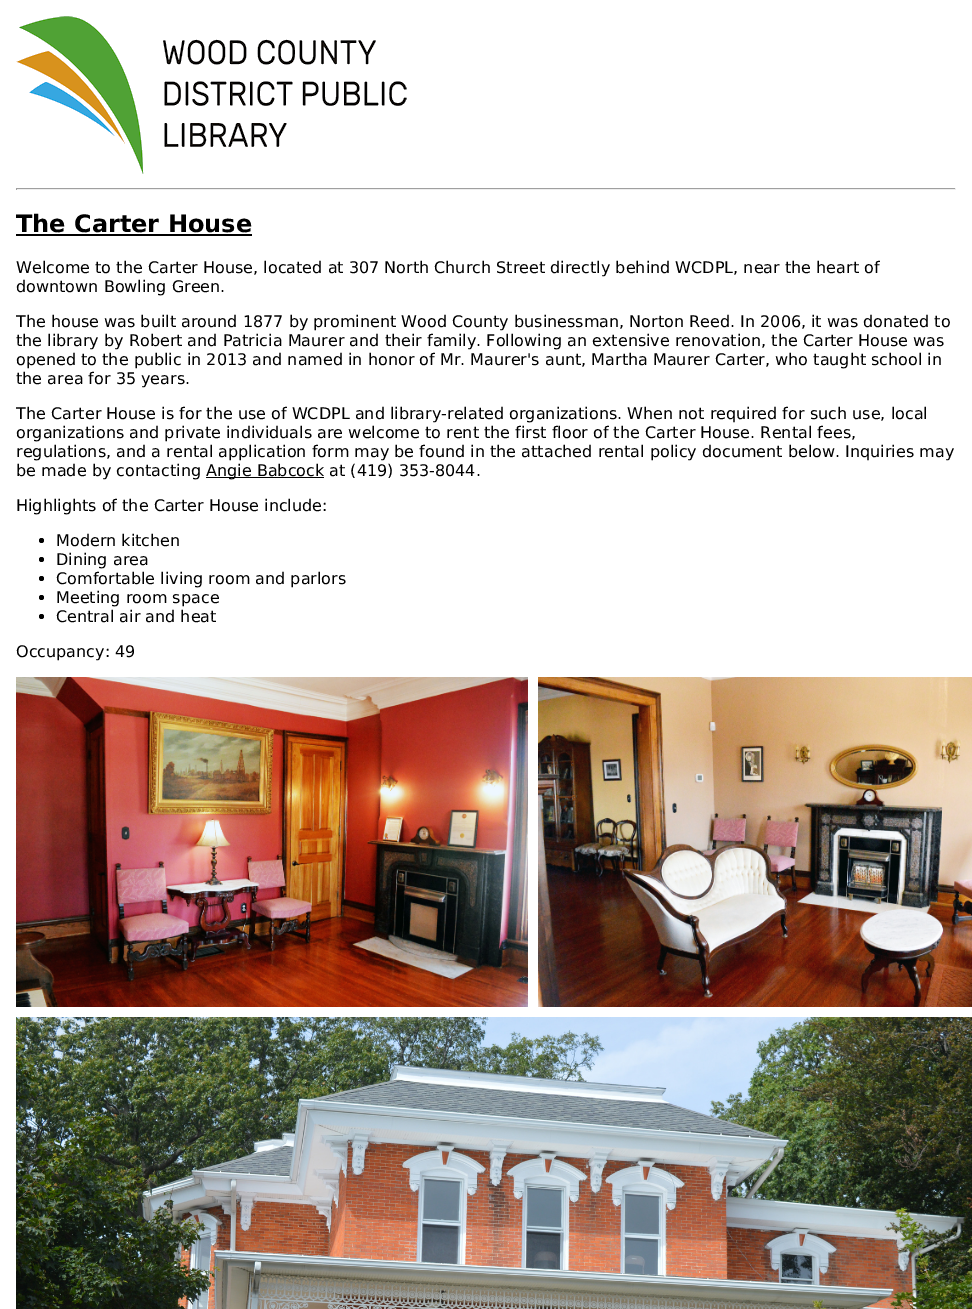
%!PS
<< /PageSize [972 1309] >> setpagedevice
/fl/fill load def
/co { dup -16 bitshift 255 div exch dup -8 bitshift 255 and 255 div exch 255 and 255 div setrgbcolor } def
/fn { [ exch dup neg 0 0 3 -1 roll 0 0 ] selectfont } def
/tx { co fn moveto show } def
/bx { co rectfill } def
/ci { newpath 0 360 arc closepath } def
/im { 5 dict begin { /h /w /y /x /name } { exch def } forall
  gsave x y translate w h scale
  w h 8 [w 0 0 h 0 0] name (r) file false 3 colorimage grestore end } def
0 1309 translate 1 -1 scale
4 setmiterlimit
0 0 972 1309 16#FFFFFF bx
(media/1.raw) 16 16 391 158 im
16 188 940 1 16#9F9F9F bx
955 188 1 2 16#EEEEEE bx
16 189 940 1 16#EEEEEE bx
16 188 1 2 16#9F9F9F bx
16 234 236 2 16#000000 bx
206 477 118 1 16#000000 bx
41.5 540.5 2.5 ci fl
41.5 559.5 2.5 ci fl
41.5 578.5 2.5 ci fl
41.5 597.5 2.5 ci fl
41.5 616.5 2.5 ci fl
(media/2.raw) 16 677 956 632 im
(The Carter House) 16 232 /DejaVuSans-Bold 24 16#000000 tx
(Welcome to the Carter House, located at 307 North Church Street directly behind WCDPL, near the heart of) 16 273 /DejaVuSans-Regular 16 16#000000 tx
(downtown Bowling Green.) 16 292 /DejaVuSans-Regular 16 16#000000 tx
(The house was built around 1877 by prominent Wood County businessman, Norton Reed. In 2006, it was donated to) 16 327 /DejaVuSans-Regular 16 16#000000 tx
(the library by Robert and Patricia Maurer and their family. Following an extensive renovation, the Carter House was) 16 346 /DejaVuSans-Regular 16 16#000000 tx
(opened to the public in 2013 and named in honor of Mr. Maurer's aunt, Martha Maurer Carter, who taught school in) 16 365 /DejaVuSans-Regular 16 16#000000 tx
(the area for 35 years.) 16 384 /DejaVuSans-Regular 16 16#000000 tx
(The Carter House is for the use of WCDPL and library-related organizations. When not required for such use, local) 16 419 /DejaVuSans-Regular 16 16#000000 tx
(organizations and private individuals are welcome to rent the first floor of the Carter House. Rental fees,) 16 438 /DejaVuSans-Regular 16 16#000000 tx
(regulations, and a rental application form may be found in the attached rental policy document below. Inquiries may) 16 457 /DejaVuSans-Regular 16 16#000000 tx
(be made by contacting) 16 476 /DejaVuSans-Regular 16 16#000000 tx
(Angie Babcock at \(419\) 353-8044.) 206 476 /DejaVuSans-Regular 16 16#000000 tx
(Highlights of the Carter House include:) 16 511 /DejaVuSans-Regular 16 16#000000 tx
(Modern kitchen) 56 546 /DejaVuSans-Regular 16 16#000000 tx
(Dining area) 56 565 /DejaVuSans-Regular 16 16#000000 tx
(Comfortable living room and parlors) 56 584 /DejaVuSans-Regular 16 16#000000 tx
(Meeting room space) 56 603 /DejaVuSans-Regular 16 16#000000 tx
(Central air and heat) 56 622 /DejaVuSans-Regular 16 16#000000 tx
(Occupancy: 49) 16 657 /DejaVuSans-Regular 16 16#000000 tx
showpage
